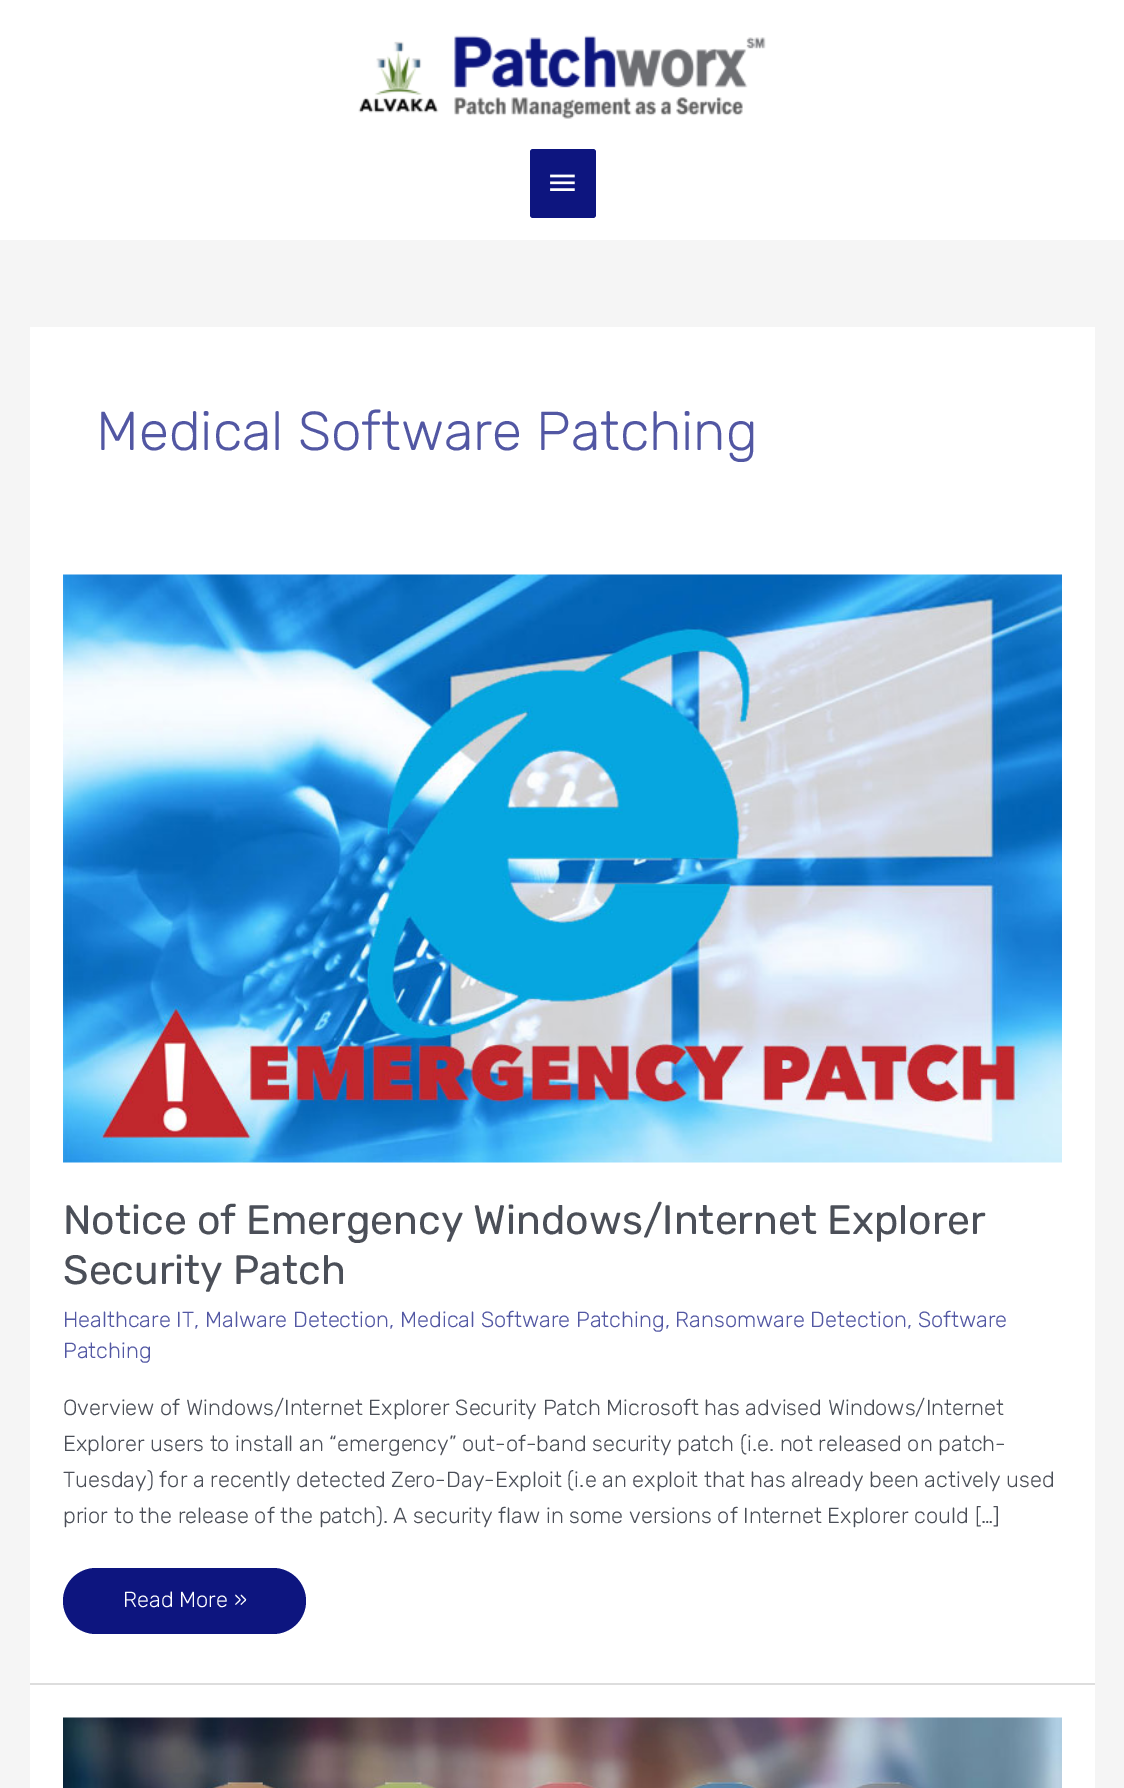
%!PS
<< /PageSize [1124 1788] >> setpagedevice
/fl/fill load def
/co { dup -16 bitshift 255 div exch dup -8 bitshift 255 and 255 div exch 255 and 255 div setrgbcolor } def
/fn { [ exch dup neg 0 0 3 -1 roll 0 0 ] selectfont } def
/tx { co fn moveto show } def
/bx { co rectfill } def
/rr { 5 dict begin { /r /h /w /y /x } { exch def } forall
  x r add y moveto x w add y 2 copy h add r arct x w add y h add x 1 index r arct
  x y h add x y r arct x y 2 copy exch w add exch r arct closepath end } def
/im { 5 dict begin { /h /w /y /x /name } { exch def } forall
  gsave x y translate w h scale
  w h 8 [w 0 0 h 0 0] name (r) file false 3 colorimage grestore end } def
0 1788 translate 1 -1 scale
4 setmiterlimit
0 0 1124 1788 16#F5F5F5 bx
0 0 1124 240 16#FFFFFF bx
(media/1.raw) 358 35 408 84 im
16#0D157F co
530 149 66 69 3 rr fl
(media/2.raw) 550 174 25 17 im
30 327 1065 1356 16#FFFFFF bx
30 1683 1065 2 16#DDDDDD bx
(media/3.raw) 63 574 999 589 im
16#0D157F co
63 1568 243 66 33 rr fl
30 1685 1065 103 16#FFFFFF bx
(media/4.raw) 63 1717 999 71 im
(Medical Software Patching) 96 450 /Rubik-Light 54.75 16#5257A3 tx
(Notice of Emergency Windows/Internet Explorer) 63 1234 /Rubik-Regular 41 16#4B4F58 tx
(Security Patch) 63 1284 /Rubik-Regular 41 16#4B4F58 tx
(Healthcare IT, Malware Detection, Medical Software Patching, Ransomware Detection, Software) 63 1327 /Rubik-Light 21.9 16#5257A3 tx
(Patching) 63 1358 /Rubik-Light 21.9 16#5257A3 tx
(Overview of Windows/Internet Explorer Security Patch Microsoft has advised Windows/Internet) 63 1415 /Rubik-Light 21.9 16#4B4F58 tx
(Explorer users to install an “emergency” out-of-band security patch \(i.e. not released on patch-) 63 1451 /Rubik-Light 21.9 16#4B4F58 tx
(Tuesday\) for a recently detected Zero-Day-Exploit \(i.e an exploit that has already been actively used) 63 1487 /Rubik-Light 21.9 16#4B4F58 tx
(prior to the release of the patch\). A security flaw in some versions of Internet Explorer could […]) 63 1523 /Rubik-Light 21.9 16#4B4F58 tx
(Read More ») 123 1607 /Rubik-Light 21.9 16#FFFFFF tx
showpage
